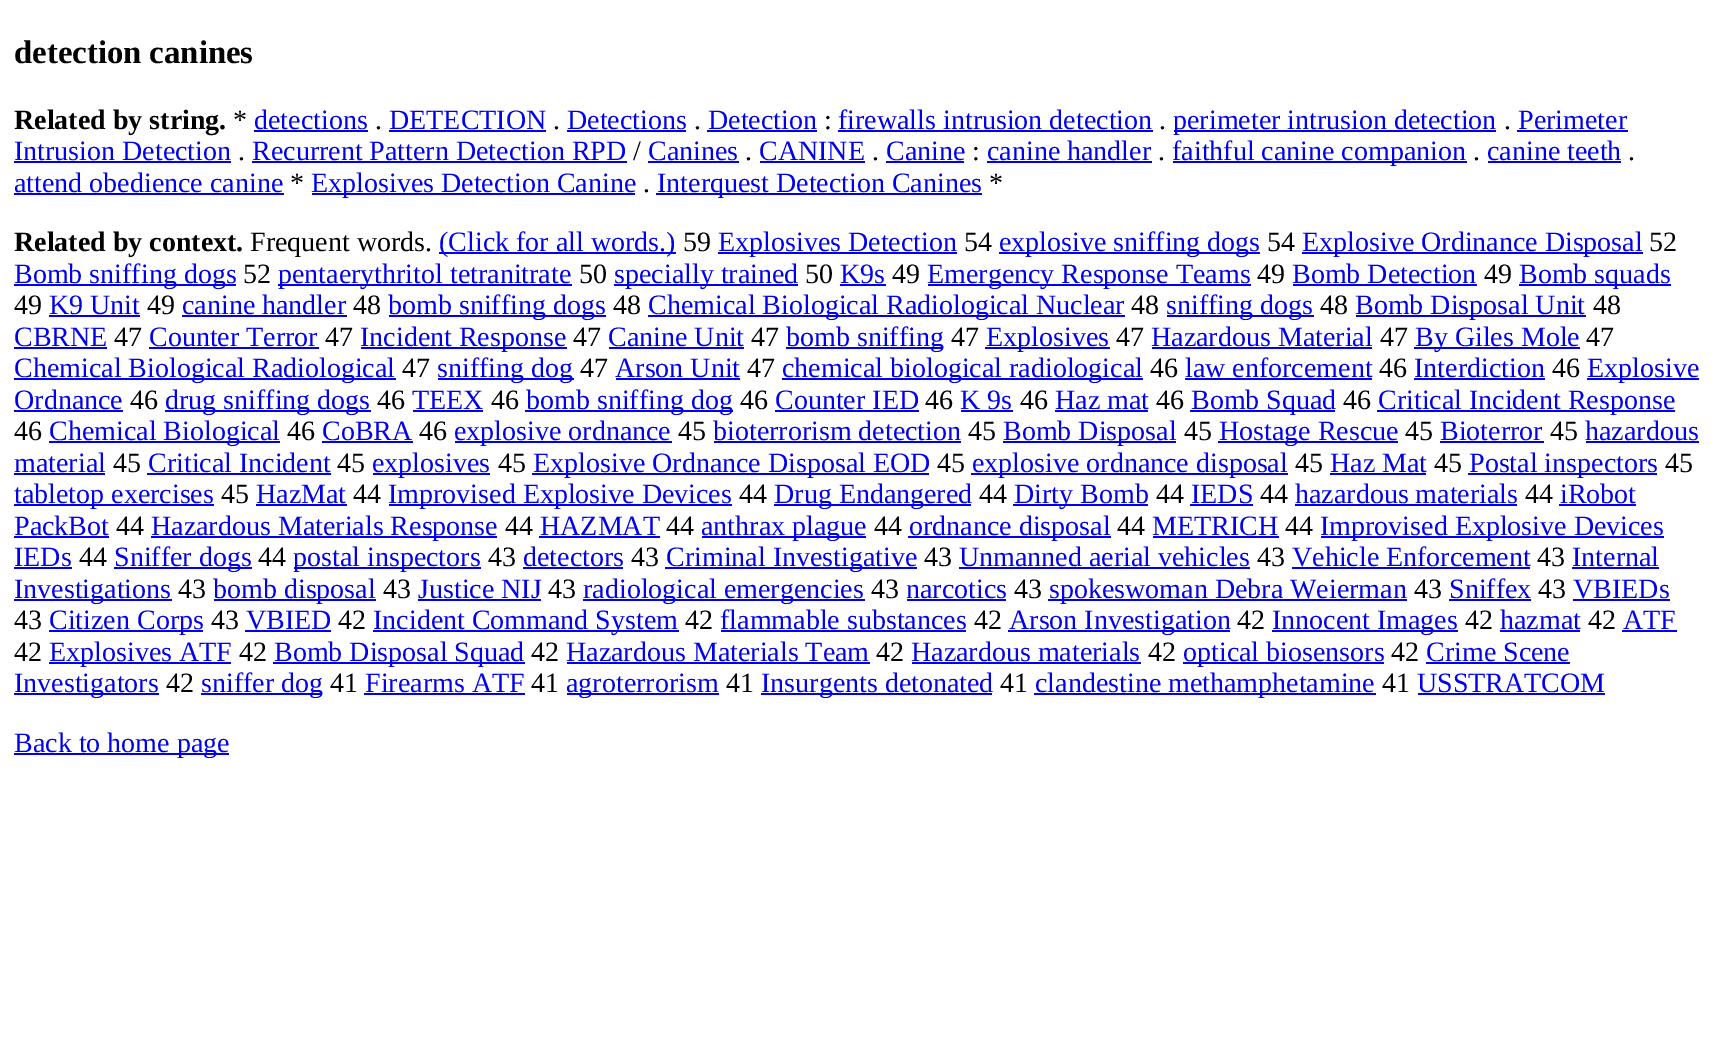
%!PS
<< /PageSize [1718 1044] >> setpagedevice
/co { dup -16 bitshift 255 div exch dup -8 bitshift 255 and 255 div exch 255 and 255 div setrgbcolor } def
/fn { [ exch dup neg 0 0 3 -1 roll 0 0 ] selectfont } def
/tx { co fn moveto show } def
/bx { co rectfill } def
0 1044 translate 1 -1 scale
4 setmiterlimit
0 0 1718 1044 16#FFFFFF bx
254 130 114 2 16#0000EE bx
389 130 157 2 16#0000EE bx
567 130 119 2 16#0000EE bx
707 130 110 2 16#0000EE bx
838 130 315 2 16#0000EE bx
1174 130 322 2 16#0000EE bx
1517 130 111 2 16#0000EE bx
14 161 217 2 16#0000EE bx
252 161 375 2 16#0000EE bx
648 161 91 2 16#0000EE bx
760 161 105 2 16#0000EE bx
886 161 78 2 16#0000EE bx
987 161 165 2 16#0000EE bx
1173 161 294 2 16#0000EE bx
1488 161 133 2 16#0000EE bx
14 193 270 2 16#0000EE bx
312 193 323 2 16#0000EE bx
656 193 326 2 16#0000EE bx
439 252 237 2 16#0000EE bx
718 252 239 2 16#0000EE bx
999 252 261 2 16#0000EE bx
1302 252 341 2 16#0000EE bx
14 284 222 2 16#0000EE bx
278 284 294 2 16#0000EE bx
614 284 184 2 16#0000EE bx
840 284 46 2 16#0000EE bx
928 284 323 2 16#0000EE bx
1293 284 184 2 16#0000EE bx
1519 284 152 2 16#0000EE bx
49 315 91 2 16#0000EE bx
182 315 165 2 16#0000EE bx
389 315 217 2 16#0000EE bx
648 315 477 2 16#0000EE bx
1167 315 147 2 16#0000EE bx
1356 315 230 2 16#0000EE bx
14 347 93 2 16#0000EE bx
149 347 170 2 16#0000EE bx
361 347 206 2 16#0000EE bx
609 347 135 2 16#0000EE bx
786 347 157 2 16#0000EE bx
985 347 125 2 16#0000EE bx
1152 347 220 2 16#0000EE bx
1414 347 166 2 16#0000EE bx
14 378 382 2 16#0000EE bx
438 378 136 2 16#0000EE bx
616 378 124 2 16#0000EE bx
782 378 361 2 16#0000EE bx
1185 378 187 2 16#0000EE bx
1414 378 131 2 16#0000EE bx
1587 378 112 2 16#0000EE bx
14 410 109 2 16#0000EE bx
165 410 206 2 16#0000EE bx
413 410 70 2 16#0000EE bx
525 410 208 2 16#0000EE bx
775 410 144 2 16#0000EE bx
961 410 52 2 16#0000EE bx
1055 410 93 2 16#0000EE bx
1190 410 145 2 16#0000EE bx
1377 410 298 2 16#0000EE bx
49 441 231 2 16#0000EE bx
322 441 91 2 16#0000EE bx
455 441 217 2 16#0000EE bx
714 441 247 2 16#0000EE bx
1003 441 173 2 16#0000EE bx
1218 441 180 2 16#0000EE bx
1440 441 104 2 16#0000EE bx
1586 441 113 2 16#0000EE bx
14 473 91 2 16#0000EE bx
147 473 184 2 16#0000EE bx
373 473 117 2 16#0000EE bx
532 473 397 2 16#0000EE bx
971 473 317 2 16#0000EE bx
1330 473 96 2 16#0000EE bx
1468 473 189 2 16#0000EE bx
14 504 200 2 16#0000EE bx
256 504 91 2 16#0000EE bx
389 504 343 2 16#0000EE bx
774 504 197 2 16#0000EE bx
1013 504 135 2 16#0000EE bx
1190 504 63 2 16#0000EE bx
1295 504 222 2 16#0000EE bx
1559 504 77 2 16#0000EE bx
14 536 95 2 16#0000EE bx
151 536 346 2 16#0000EE bx
539 536 121 2 16#0000EE bx
702 536 164 2 16#0000EE bx
908 536 203 2 16#0000EE bx
1153 536 126 2 16#0000EE bx
1321 536 343 2 16#0000EE bx
14 567 58 2 16#0000EE bx
114 567 138 2 16#0000EE bx
294 567 187 2 16#0000EE bx
523 567 100 2 16#0000EE bx
665 567 252 2 16#0000EE bx
959 567 291 2 16#0000EE bx
1292 567 238 2 16#0000EE bx
1572 567 87 2 16#0000EE bx
14 599 158 2 16#0000EE bx
214 599 162 2 16#0000EE bx
418 599 123 2 16#0000EE bx
583 599 282 2 16#0000EE bx
907 599 99 2 16#0000EE bx
1048 599 359 2 16#0000EE bx
1449 599 82 2 16#0000EE bx
1573 599 97 2 16#0000EE bx
49 630 154 2 16#0000EE bx
245 630 86 2 16#0000EE bx
373 630 306 2 16#0000EE bx
721 630 245 2 16#0000EE bx
1008 630 222 2 16#0000EE bx
1272 630 186 2 16#0000EE bx
1500 630 80 2 16#0000EE bx
1622 630 55 2 16#0000EE bx
49 662 182 2 16#0000EE bx
273 662 252 2 16#0000EE bx
567 662 303 2 16#0000EE bx
912 662 229 2 16#0000EE bx
1183 662 201 2 16#0000EE bx
1426 662 144 2 16#0000EE bx
14 693 145 2 16#0000EE bx
201 693 121 2 16#0000EE bx
364 693 161 2 16#0000EE bx
567 693 152 2 16#0000EE bx
761 693 231 2 16#0000EE bx
1034 693 342 2 16#0000EE bx
1418 693 187 2 16#0000EE bx
14 753 215 2 16#0000EE bx
(detection canines) 14 63 /LiberationSerif-Bold 32.75 16#000000 tx
(Related by string.) 14 129 /LiberationSerif-Bold 28 16#000000 tx
(*) 233 129 /LiberationSerif-Regular 28 16#000000 tx
(detections) 254 129 /LiberationSerif-Regular 28 16#0000EE tx
(.) 375 129 /LiberationSerif-Regular 28 16#000000 tx
(DETECTION) 389 129 /LiberationSerif-Regular 28 16#0000EE tx
(.) 553 129 /LiberationSerif-Regular 28 16#000000 tx
(Detections) 567 129 /LiberationSerif-Regular 28 16#0000EE tx
(.) 694 129 /LiberationSerif-Regular 28 16#000000 tx
(Detection) 708 129 /LiberationSerif-Regular 28 16#0000EE tx
(:) 824 129 /LiberationSerif-Regular 28 16#000000 tx
(firewalls intrusion detection) 838 129 /LiberationSerif-Regular 28 16#0000EE tx
(.) 1159 129 /LiberationSerif-Regular 28 16#000000 tx
(perimeter intrusion detection) 1173 129 /LiberationSerif-Regular 28 16#0000EE tx
(.) 1504 129 /LiberationSerif-Regular 28 16#000000 tx
(Perimeter) 1518 129 /LiberationSerif-Regular 28 16#0000EE tx
(Intrusion Detection) 14 160 /LiberationSerif-Regular 28 16#0000EE tx
(.) 238 160 /LiberationSerif-Regular 28 16#000000 tx
(Recurrent Pattern Detection RPD) 252 160 /LiberationSerif-Regular 28 16#0000EE tx
(/) 633 160 /LiberationSerif-Regular 28 16#000000 tx
(Canines) 648 160 /LiberationSerif-Regular 28 16#0000EE tx
(.) 745 160 /LiberationSerif-Regular 28 16#000000 tx
(CANINE) 759 160 /LiberationSerif-Regular 28 16#0000EE tx
(.) 872 160 /LiberationSerif-Regular 28 16#000000 tx
(Canine) 886 160 /LiberationSerif-Regular 28 16#0000EE tx
(:) 972 160 /LiberationSerif-Regular 28 16#000000 tx
(canine handler) 987 160 /LiberationSerif-Regular 28 16#0000EE tx
(.) 1158 160 /LiberationSerif-Regular 28 16#000000 tx
(faithful canine companion) 1172 160 /LiberationSerif-Regular 28 16#0000EE tx
(.) 1473 160 /LiberationSerif-Regular 28 16#000000 tx
(canine teeth) 1487 160 /LiberationSerif-Regular 28 16#0000EE tx
(.) 1628 160 /LiberationSerif-Regular 28 16#000000 tx
(attend obedience canine) 14 192 /LiberationSerif-Regular 28 16#0000EE tx
(*) 290 192 /LiberationSerif-Regular 28 16#000000 tx
(Explosives Detection Canine) 311 192 /LiberationSerif-Regular 28 16#0000EE tx
(Interquest Detection Canines) 657 192 /LiberationSerif-Regular 28 16#0000EE tx
(*) 989 192 /LiberationSerif-Regular 28 16#000000 tx
(.) 643 192 /LiberationSerif-Regular 28 16#000000 tx
(Related by context.) 14 251 /LiberationSerif-Bold 28 16#000000 tx
(Frequent words.) 250 251 /LiberationSerif-Regular 28 16#000000 tx
(\(Click for all words.\)) 439 251 /LiberationSerif-Regular 28 16#0000EE tx
(59) 683 251 /LiberationSerif-Regular 28 16#000000 tx
(Explosives Detection) 718 251 /LiberationSerif-Regular 28 16#0000EE tx
(54) 964 251 /LiberationSerif-Regular 28 16#000000 tx
(explosive sniffing dogs) 999 251 /LiberationSerif-Regular 28 16#0000EE tx
(54) 1267 251 /LiberationSerif-Regular 28 16#000000 tx
(Explosive Ordinance Disposal) 1302 251 /LiberationSerif-Regular 28 16#0000EE tx
(52) 1649 251 /LiberationSerif-Regular 28 16#000000 tx
(Bomb sniffing dogs) 14 283 /LiberationSerif-Regular 28 16#0000EE tx
(52) 243 283 /LiberationSerif-Regular 28 16#000000 tx
(pentaerythritol tetranitrate) 278 283 /LiberationSerif-Regular 28 16#0000EE tx
(50) 579 283 /LiberationSerif-Regular 28 16#000000 tx
(specially trained) 614 283 /LiberationSerif-Regular 28 16#0000EE tx
(50) 805 283 /LiberationSerif-Regular 28 16#000000 tx
(K9s) 840 283 /LiberationSerif-Regular 28 16#0000EE tx
(49) 892 283 /LiberationSerif-Regular 28 16#000000 tx
(Emergency Response Teams) 927 283 /LiberationSerif-Regular 28 16#0000EE tx
(49) 1257 283 /LiberationSerif-Regular 28 16#000000 tx
(Bomb Detection) 1292 283 /LiberationSerif-Regular 28 16#0000EE tx
(49) 1484 283 /LiberationSerif-Regular 28 16#000000 tx
(Bomb squads) 1519 283 /LiberationSerif-Regular 28 16#0000EE tx
(49) 14 314 /LiberationSerif-Regular 28 16#000000 tx
(K9 Unit) 49 314 /LiberationSerif-Regular 28 16#0000EE tx
(49) 147 314 /LiberationSerif-Regular 28 16#000000 tx
(canine handler) 182 314 /LiberationSerif-Regular 28 16#0000EE tx
(48) 353 314 /LiberationSerif-Regular 28 16#000000 tx
(bomb sniffing dogs) 388 314 /LiberationSerif-Regular 28 16#0000EE tx
(48) 613 314 /LiberationSerif-Regular 28 16#000000 tx
(Chemical Biological Radiological Nuclear) 648 314 /LiberationSerif-Regular 28 16#0000EE tx
(48) 1131 314 /LiberationSerif-Regular 28 16#000000 tx
(sniffing dogs) 1166 314 /LiberationSerif-Regular 28 16#0000EE tx
(48) 1320 314 /LiberationSerif-Regular 28 16#000000 tx
(Bomb Disposal Unit) 1355 314 /LiberationSerif-Regular 28 16#0000EE tx
(48) 1593 314 /LiberationSerif-Regular 28 16#000000 tx
(CBRNE) 14 346 /LiberationSerif-Regular 28 16#0000EE tx
(47) 114 346 /LiberationSerif-Regular 28 16#000000 tx
(Counter Terror) 149 346 /LiberationSerif-Regular 28 16#0000EE tx
(47) 325 346 /LiberationSerif-Regular 28 16#000000 tx
(Incident Response) 360 346 /LiberationSerif-Regular 28 16#0000EE tx
(47) 573 346 /LiberationSerif-Regular 28 16#000000 tx
(Canine Unit) 608 346 /LiberationSerif-Regular 28 16#0000EE tx
(47) 751 346 /LiberationSerif-Regular 28 16#000000 tx
(bomb sniffing) 786 346 /LiberationSerif-Regular 28 16#0000EE tx
(47) 951 346 /LiberationSerif-Regular 28 16#000000 tx
(Explosives) 986 346 /LiberationSerif-Regular 28 16#0000EE tx
(47) 1116 346 /LiberationSerif-Regular 28 16#000000 tx
(Hazardous Material) 1151 346 /LiberationSerif-Regular 28 16#0000EE tx
(47) 1380 346 /LiberationSerif-Regular 28 16#000000 tx
(By Giles Mole) 1415 346 /LiberationSerif-Regular 28 16#0000EE tx
(47) 1586 346 /LiberationSerif-Regular 28 16#000000 tx
(Chemical Biological Radiological) 14 377 /LiberationSerif-Regular 28 16#0000EE tx
(47) 402 377 /LiberationSerif-Regular 28 16#000000 tx
(sniffing dog) 437 377 /LiberationSerif-Regular 28 16#0000EE tx
(47) 580 377 /LiberationSerif-Regular 28 16#000000 tx
(Arson Unit) 615 377 /LiberationSerif-Regular 28 16#0000EE tx
(47) 747 377 /LiberationSerif-Regular 28 16#000000 tx
(chemical biological radiological) 782 377 /LiberationSerif-Regular 28 16#0000EE tx
(46) 1150 377 /LiberationSerif-Regular 28 16#000000 tx
(law enforcement) 1185 377 /LiberationSerif-Regular 28 16#0000EE tx
(46) 1379 377 /LiberationSerif-Regular 28 16#000000 tx
(Interdiction) 1414 377 /LiberationSerif-Regular 28 16#0000EE tx
(46) 1552 377 /LiberationSerif-Regular 28 16#000000 tx
(Explosive) 1587 377 /LiberationSerif-Regular 28 16#0000EE tx
(Ordnance) 14 409 /LiberationSerif-Regular 28 16#0000EE tx
(46) 130 409 /LiberationSerif-Regular 28 16#000000 tx
(drug sniffing dogs) 165 409 /LiberationSerif-Regular 28 16#0000EE tx
(46) 377 409 /LiberationSerif-Regular 28 16#000000 tx
(TEEX) 412 409 /LiberationSerif-Regular 28 16#0000EE tx
(46) 491 409 /LiberationSerif-Regular 28 16#000000 tx
(bomb sniffing dog) 526 409 /LiberationSerif-Regular 28 16#0000EE tx
(46) 740 409 /LiberationSerif-Regular 28 16#000000 tx
(Counter IED) 775 409 /LiberationSerif-Regular 28 16#0000EE tx
(46) 925 409 /LiberationSerif-Regular 28 16#000000 tx
(K 9s) 960 409 /LiberationSerif-Regular 28 16#0000EE tx
(46) 1020 409 /LiberationSerif-Regular 28 16#000000 tx
(Haz mat) 1055 409 /LiberationSerif-Regular 28 16#0000EE tx
(46) 1156 409 /LiberationSerif-Regular 28 16#000000 tx
(Bomb Squad) 1191 409 /LiberationSerif-Regular 28 16#0000EE tx
(46) 1343 409 /LiberationSerif-Regular 28 16#000000 tx
(Critical Incident Response) 1378 409 /LiberationSerif-Regular 28 16#0000EE tx
(46) 14 440 /LiberationSerif-Regular 28 16#000000 tx
(Chemical Biological) 49 440 /LiberationSerif-Regular 28 16#0000EE tx
(46) 287 440 /LiberationSerif-Regular 28 16#000000 tx
(CoBRA) 322 440 /LiberationSerif-Regular 28 16#0000EE tx
(46) 419 440 /LiberationSerif-Regular 28 16#000000 tx
(explosive ordnance) 454 440 /LiberationSerif-Regular 28 16#0000EE tx
(45) 678 440 /LiberationSerif-Regular 28 16#000000 tx
(bioterrorism detection) 713 440 /LiberationSerif-Regular 28 16#0000EE tx
(45) 968 440 /LiberationSerif-Regular 28 16#000000 tx
(Bomb Disposal) 1003 440 /LiberationSerif-Regular 28 16#0000EE tx
(45) 1184 440 /LiberationSerif-Regular 28 16#000000 tx
(Hostage Rescue) 1219 440 /LiberationSerif-Regular 28 16#0000EE tx
(45) 1405 440 /LiberationSerif-Regular 28 16#000000 tx
(Bioterror) 1440 440 /LiberationSerif-Regular 28 16#0000EE tx
(45) 1550 440 /LiberationSerif-Regular 28 16#000000 tx
(hazardous) 1585 440 /LiberationSerif-Regular 28 16#0000EE tx
(material) 14 472 /LiberationSerif-Regular 28 16#0000EE tx
(45) 113 472 /LiberationSerif-Regular 28 16#000000 tx
(Critical Incident) 148 472 /LiberationSerif-Regular 28 16#0000EE tx
(45) 337 472 /LiberationSerif-Regular 28 16#000000 tx
(explosives) 372 472 /LiberationSerif-Regular 28 16#0000EE tx
(45) 498 472 /LiberationSerif-Regular 28 16#000000 tx
(Explosive Ordnance Disposal EOD) 533 472 /LiberationSerif-Regular 28 16#0000EE tx
(45) 937 472 /LiberationSerif-Regular 28 16#000000 tx
(explosive ordnance disposal) 972 472 /LiberationSerif-Regular 28 16#0000EE tx
(45) 1295 472 /LiberationSerif-Regular 28 16#000000 tx
(Haz Mat) 1330 472 /LiberationSerif-Regular 28 16#0000EE tx
(45) 1434 472 /LiberationSerif-Regular 28 16#000000 tx
(Postal inspectors) 1469 472 /LiberationSerif-Regular 28 16#0000EE tx
(45) 1665 472 /LiberationSerif-Regular 28 16#000000 tx
(tabletop exercises) 14 503 /LiberationSerif-Regular 28 16#0000EE tx
(45) 221 503 /LiberationSerif-Regular 28 16#000000 tx
(HazMat) 256 503 /LiberationSerif-Regular 28 16#0000EE tx
(44) 353 503 /LiberationSerif-Regular 28 16#000000 tx
(Improvised Explosive Devices) 388 503 /LiberationSerif-Regular 28 16#0000EE tx
(44) 739 503 /LiberationSerif-Regular 28 16#000000 tx
(Drug Endangered) 774 503 /LiberationSerif-Regular 28 16#0000EE tx
(44) 979 503 /LiberationSerif-Regular 28 16#000000 tx
(Dirty Bomb) 1014 503 /LiberationSerif-Regular 28 16#0000EE tx
(44) 1156 503 /LiberationSerif-Regular 28 16#000000 tx
(IEDS) 1191 503 /LiberationSerif-Regular 28 16#0000EE tx
(44) 1260 503 /LiberationSerif-Regular 28 16#000000 tx
(hazardous materials) 1295 503 /LiberationSerif-Regular 28 16#0000EE tx
(44) 1525 503 /LiberationSerif-Regular 28 16#000000 tx
(iRobot) 1560 503 /LiberationSerif-Regular 28 16#0000EE tx
(PackBot) 14 535 /LiberationSerif-Regular 28 16#0000EE tx
(44) 116 535 /LiberationSerif-Regular 28 16#000000 tx
(Hazardous Materials Response) 151 535 /LiberationSerif-Regular 28 16#0000EE tx
(44) 505 535 /LiberationSerif-Regular 28 16#000000 tx
(HAZMAT) 540 535 /LiberationSerif-Regular 28 16#0000EE tx
(44) 666 535 /LiberationSerif-Regular 28 16#000000 tx
(anthrax plague) 701 535 /LiberationSerif-Regular 28 16#0000EE tx
(44) 874 535 /LiberationSerif-Regular 28 16#000000 tx
(ordnance disposal) 909 535 /LiberationSerif-Regular 28 16#0000EE tx
(44) 1117 535 /LiberationSerif-Regular 28 16#000000 tx
(METRICH) 1152 535 /LiberationSerif-Regular 28 16#0000EE tx
(44) 1285 535 /LiberationSerif-Regular 28 16#000000 tx
(Improvised Explosive Devices) 1320 535 /LiberationSerif-Regular 28 16#0000EE tx
(IEDs) 14 566 /LiberationSerif-Regular 28 16#0000EE tx
(44) 79 566 /LiberationSerif-Regular 28 16#000000 tx
(Sniffer dogs) 114 566 /LiberationSerif-Regular 28 16#0000EE tx
(44) 258 566 /LiberationSerif-Regular 28 16#000000 tx
(postal inspectors) 293 566 /LiberationSerif-Regular 28 16#0000EE tx
(43) 488 566 /LiberationSerif-Regular 28 16#000000 tx
(detectors) 523 566 /LiberationSerif-Regular 28 16#0000EE tx
(43) 631 566 /LiberationSerif-Regular 28 16#000000 tx
(Criminal Investigative) 666 566 /LiberationSerif-Regular 28 16#0000EE tx
(43) 924 566 /LiberationSerif-Regular 28 16#000000 tx
(Unmanned aerial vehicles) 959 566 /LiberationSerif-Regular 28 16#0000EE tx
(43) 1257 566 /LiberationSerif-Regular 28 16#000000 tx
(Vehicle Enforcement) 1292 566 /LiberationSerif-Regular 28 16#0000EE tx
(43) 1537 566 /LiberationSerif-Regular 28 16#000000 tx
(Internal) 1572 566 /LiberationSerif-Regular 28 16#0000EE tx
(Investigations) 14 598 /LiberationSerif-Regular 28 16#0000EE tx
(43) 178 598 /LiberationSerif-Regular 28 16#000000 tx
(bomb disposal) 213 598 /LiberationSerif-Regular 28 16#0000EE tx
(43) 383 598 /LiberationSerif-Regular 28 16#000000 tx
(Justice NIJ) 418 598 /LiberationSerif-Regular 28 16#0000EE tx
(43) 548 598 /LiberationSerif-Regular 28 16#000000 tx
(radiological emergencies) 583 598 /LiberationSerif-Regular 28 16#0000EE tx
(43) 871 598 /LiberationSerif-Regular 28 16#000000 tx
(narcotics) 906 598 /LiberationSerif-Regular 28 16#0000EE tx
(43) 1014 598 /LiberationSerif-Regular 28 16#000000 tx
(spokeswoman Debra Weierman) 1049 598 /LiberationSerif-Regular 28 16#0000EE tx
(43) 1414 598 /LiberationSerif-Regular 28 16#000000 tx
(Sniffex) 1449 598 /LiberationSerif-Regular 28 16#0000EE tx
(43) 1538 598 /LiberationSerif-Regular 28 16#000000 tx
(VBIEDs) 1573 598 /LiberationSerif-Regular 28 16#0000EE tx
(43) 14 629 /LiberationSerif-Regular 28 16#000000 tx
(Citizen Corps) 49 629 /LiberationSerif-Regular 28 16#0000EE tx
(43) 211 629 /LiberationSerif-Regular 28 16#000000 tx
(VBIED) 246 629 /LiberationSerif-Regular 28 16#0000EE tx
(42) 338 629 /LiberationSerif-Regular 28 16#000000 tx
(Incident Command System) 373 629 /LiberationSerif-Regular 28 16#0000EE tx
(42) 685 629 /LiberationSerif-Regular 28 16#000000 tx
(flammable substances) 720 629 /LiberationSerif-Regular 28 16#0000EE tx
(42) 974 629 /LiberationSerif-Regular 28 16#000000 tx
(Arson Investigation) 1009 629 /LiberationSerif-Regular 28 16#0000EE tx
(42) 1237 629 /LiberationSerif-Regular 28 16#000000 tx
(Innocent Images) 1272 629 /LiberationSerif-Regular 28 16#0000EE tx
(42) 1465 629 /LiberationSerif-Regular 28 16#000000 tx
(hazmat) 1500 629 /LiberationSerif-Regular 28 16#0000EE tx
(42) 1588 629 /LiberationSerif-Regular 28 16#000000 tx
(ATF) 1623 629 /LiberationSerif-Regular 28 16#0000EE tx
(42) 14 661 /LiberationSerif-Regular 28 16#000000 tx
(Explosives ATF) 49 661 /LiberationSerif-Regular 28 16#0000EE tx
(42) 239 661 /LiberationSerif-Regular 28 16#000000 tx
(Bomb Disposal Squad) 274 661 /LiberationSerif-Regular 28 16#0000EE tx
(42) 531 661 /LiberationSerif-Regular 28 16#000000 tx
(Hazardous Materials Team) 566 661 /LiberationSerif-Regular 28 16#0000EE tx
(42) 876 661 /LiberationSerif-Regular 28 16#000000 tx
(Hazardous materials) 911 661 /LiberationSerif-Regular 28 16#0000EE tx
(42) 1148 661 /LiberationSerif-Regular 28 16#000000 tx
(optical biosensors) 1183 661 /LiberationSerif-Regular 28 16#0000EE tx
(42) 1391 661 /LiberationSerif-Regular 28 16#000000 tx
(Crime Scene) 1426 661 /LiberationSerif-Regular 28 16#0000EE tx
(Investigators) 14 692 /LiberationSerif-Regular 28 16#0000EE tx
(42) 166 692 /LiberationSerif-Regular 28 16#000000 tx
(sniffer dog) 201 692 /LiberationSerif-Regular 28 16#0000EE tx
(41) 330 692 /LiberationSerif-Regular 28 16#000000 tx
(Firearms ATF) 365 692 /LiberationSerif-Regular 28 16#0000EE tx
(41) 531 692 /LiberationSerif-Regular 28 16#000000 tx
(agroterrorism) 566 692 /LiberationSerif-Regular 28 16#0000EE tx
(41) 726 692 /LiberationSerif-Regular 28 16#000000 tx
(Insurgents detonated) 761 692 /LiberationSerif-Regular 28 16#0000EE tx
(41) 1000 692 /LiberationSerif-Regular 28 16#000000 tx
(clandestine methamphetamine) 1035 692 /LiberationSerif-Regular 28 16#0000EE tx
(41) 1382 692 /LiberationSerif-Regular 28 16#000000 tx
(USSTRATCOM) 1417 692 /LiberationSerif-Regular 28 16#0000EE tx
(Back to home page) 14 752 /LiberationSerif-Regular 28 16#0000EE tx
showpage
